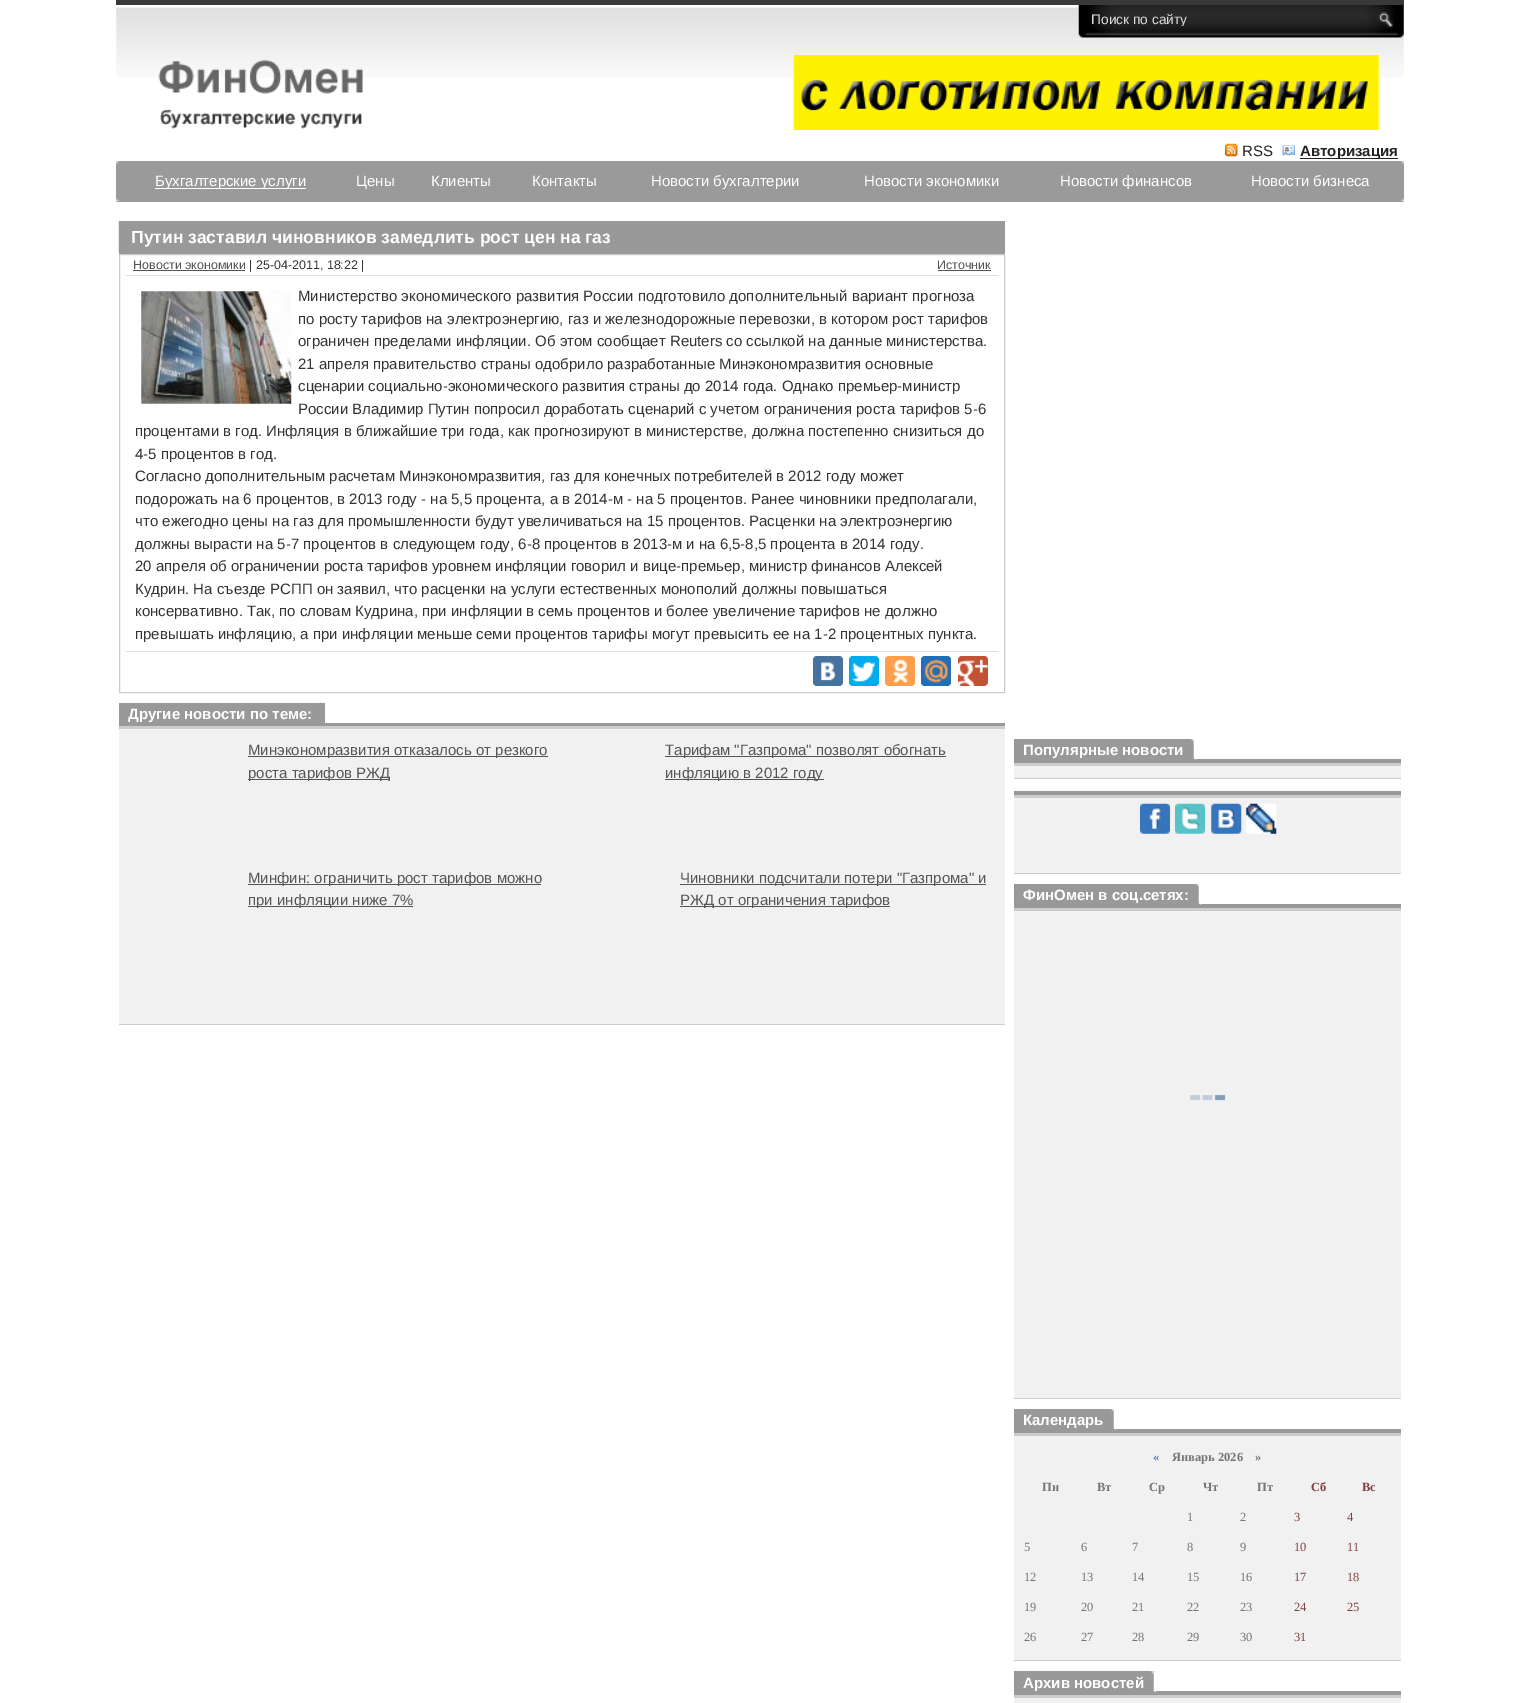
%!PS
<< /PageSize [1519 1703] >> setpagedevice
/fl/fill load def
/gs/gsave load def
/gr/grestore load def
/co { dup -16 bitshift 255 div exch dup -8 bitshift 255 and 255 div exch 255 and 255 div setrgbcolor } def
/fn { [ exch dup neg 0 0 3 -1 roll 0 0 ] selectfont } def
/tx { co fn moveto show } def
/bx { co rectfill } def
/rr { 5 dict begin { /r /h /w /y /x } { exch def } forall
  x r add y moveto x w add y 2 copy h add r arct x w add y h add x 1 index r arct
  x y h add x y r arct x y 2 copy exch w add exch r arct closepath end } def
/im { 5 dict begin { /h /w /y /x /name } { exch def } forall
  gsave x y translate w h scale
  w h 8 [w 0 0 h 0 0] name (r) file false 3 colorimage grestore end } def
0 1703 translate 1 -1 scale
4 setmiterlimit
0 0 1519 1703 16#FFFFFF bx
116 0 1288 5 16#393939 bx
(media/1.raw) 116 7 1288 71 im
(media/2.raw) 1078 5 326 33 im
(media/3.raw) 158 59 205 70 im
(media/4.raw) 1225 143 13 14 im
(media/5.raw) 1282 144 13 12 im
1300 158 98 1 16#222222 bx
116 161 1288 41 16#9A9A9A bx
(media/6.raw) 116 161 3 41 im
155 188 151 1 16#FFFFFF bx
(media/7.raw) 1401 161 3 41 im
119 221 886 33 16#999999 bx
(media/8.raw) 118 221 1 32 im
16#CCCCCC co
119.5 254.5 885 438 rectstroke
126 275 872 1 16#DDDDDD bx
133 270 112 1 16#555555 bx
938 270 53 1 16#555555 bx
(media/9.raw) 141 291 151 113 im
126 651 872 1 16#DDDDDD bx
16#48729E co
813 656 30 30 4 rr fl
(media/10.raw) 821 662 15 19 im
16#00ACED co
849 656 30 30 4 rr fl
(media/11.raw) 852 662 24 20 im
16#FF9F4D co
885 656 30 30 4 rr fl
(media/12.raw) 893 659 15 24 im
16#226EB7 co
921 656 30 30 4 rr fl
(media/13.raw) 924 659 24 24 im
16#C25234 co
958 656 30 30 4 rr fl
(media/14.raw) 958 659 30 27 im
119 723 886 3 16#999999 bx
(media/15.raw) 320 702 5 1 im
119 703 206 20 16#999999 bx
119 729 886 295 16#F1F1F1 bx
119 726 886 3 16#CCCCCC bx
119 1024 886 1 16#CCCCCC bx
248 756 300 1 16#555555 bx
248 779 142 1 16#555555 bx
665 756 281 1 16#555555 bx
665 779 159 1 16#555555 bx
248 884 293 1 16#555555 bx
248 906 165 1 16#555555 bx
680 884 306 1 16#555555 bx
680 906 210 1 16#555555 bx
1014 759 387 4 16#999999 bx
1014 739 178 20 16#999999 bx
(media/16.raw) 1191 738 6 22 im
1014 766 387 12 16#F1F1F1 bx
1014 763 387 3 16#CCCCCC bx
1014 778 387 1 16#CCCCCC bx
1014 791 387 4 16#999999 bx
1014 798 387 75 16#F1F1F1 bx
1014 795 387 3 16#CCCCCC bx
1014 873 387 1 16#CCCCCC bx
(media/17.raw) 1140 803 30 31 im
(media/18.raw) 1175 803 30 31 im
(media/19.raw) 1211 803 31 31 im
(media/20.raw) 1246 803 31 31 im
1014 904 387 4 16#999999 bx
1014 884 183 20 16#999999 bx
(media/16.raw) 1196 883 6 22 im
1014 911 387 487 16#F1F1F1 bx
1014 908 387 3 16#CCCCCC bx
1014 1398 387 1 16#CCCCCC bx
(media/21.raw) 1190 1094 36 7 im
1014 1429 387 4 16#999999 bx
1014 1409 98 20 16#999999 bx
(media/16.raw) 1111 1408 6 22 im
1014 1436 387 224 16#F1F1F1 bx
1014 1433 387 3 16#CCCCCC bx
1014 1660 387 1 16#CCCCCC bx
1014 1691 387 4 16#999999 bx
1014 1671 142 20 16#999999 bx
(media/22.raw) 1151 1671 6 22 im
1014 1698 387 5 16#F1F1F1 bx
1014 1695 387 3 16#CCCCCC bx
(media/23.raw) 793 55 586 75 im
gs
1091 11 263 15 rectclip
(Поиск по сайту) 1091 24 /LiberationSans-Regular 13.75 16#DDDDDD tx
gr
(RSS) 1242 156 /LiberationSans-Regular 15 16#222222 tx
(Авторизация) 1300 156 /LiberationSans-Bold 15 16#222222 tx
(Бухгалтерские услуги) 155 186 /LiberationSans-Regular 15 16#FFFFFF tx
(Цены) 356 186 /LiberationSans-Regular 15 16#FFFFFF tx
(Клиенты) 431 186 /LiberationSans-Regular 15 16#FFFFFF tx
(Контакты) 532 186 /LiberationSans-Regular 15 16#FFFFFF tx
(Новости бухгалтерии) 651 186 /LiberationSans-Regular 15 16#FFFFFF tx
(Новости экономики) 864 186 /LiberationSans-Regular 15 16#FFFFFF tx
(Новости финансов) 1060 186 /LiberationSans-Regular 15 16#FFFFFF tx
(Новости бизнеса) 1251 186 /LiberationSans-Regular 15 16#FFFFFF tx
(Путин заставил чиновников замедлить рост цен на газ) 131 243 /LiberationSans-Bold 17.5 16#FFFFFF tx
(Новости экономики) 133 269 /LiberationSans-Regular 12.5 16#555555 tx
(| 25-04-2011, 18:22 |) 249 269 /LiberationSans-Regular 12.5 16#333333 tx
(Источник) 937 269 /LiberationSans-Regular 12.5 16#555555 tx
(Министерство экономического развития России подготовило дополнительный вариант прогноза) 298 301 /LiberationSans-Regular 15 16#333333 tx
(по росту тарифов на электроэнергию, газ и железнодорожные перевозки, в котором рост тарифов) 298 324 /LiberationSans-Regular 15 16#333333 tx
(ограничен пределами инфляции. Об этом сообщает Reuters со ссылкой на данные министерства.) 298 346 /LiberationSans-Regular 15 16#333333 tx
(21 апреля правительство страны одобрило разработанные Минэкономразвития основные) 298 369 /LiberationSans-Regular 15 16#333333 tx
(сценарии социально-экономического развития страны до 2014 года. Однако премьер-министр) 298 391 /LiberationSans-Regular 15 16#333333 tx
(России Владимир Путин попросил доработать сценарий с учетом ограничения роста тарифов 5-6) 298 414 /LiberationSans-Regular 15 16#333333 tx
(процентами в год. Инфляция в ближайшие три года, как прогнозируют в министерстве, должна постепенно снизиться до) 135 436 /LiberationSans-Regular 15 16#333333 tx
(4-5 процентов в год.) 135 459 /LiberationSans-Regular 15 16#333333 tx
(Согласно дополнительным расчетам Минэкономразвития, газ для конечных потребителей в 2012 году может) 135 481 /LiberationSans-Regular 15 16#333333 tx
(подорожать на 6 процентов, в 2013 году - на 5,5 процента, а в 2014-м - на 5 процентов. Ранее чиновники предполагали,) 135 504 /LiberationSans-Regular 15 16#333333 tx
(что ежегодно цены на газ для промышленности будут увеличиваться на 15 процентов. Расценки на электроэнергию) 135 526 /LiberationSans-Regular 15 16#333333 tx
(должны вырасти на 5-7 процентов в следующем году, 6-8 процентов в 2013-м и на 6,5-8,5 процента в 2014 году.) 135 549 /LiberationSans-Regular 15 16#333333 tx
(20 апреля об ограничении роста тарифов уровнем инфляции говорил и вице-премьер, министр финансов Алексей) 135 571 /LiberationSans-Regular 15 16#333333 tx
(Кудрин. На съезде РСПП он заявил, что расценки на услуги естественных монополий должны повышаться) 135 594 /LiberationSans-Regular 15 16#333333 tx
(консервативно. Так, по словам Кудрина, при инфляции в семь процентов и более увеличение тарифов не должно) 135 616 /LiberationSans-Regular 15 16#333333 tx
(превышать инфляцию, а при инфляции меньше семи процентов тарифы могут превысить ее на 1-2 процентных пункта.) 135 639 /LiberationSans-Regular 15 16#333333 tx
(Другие новости по теме:) 128 719 /LiberationSans-Bold 15 16#FFFFFF tx
(Минэкономразвития отказалось от резкого) 248 755 /LiberationSans-Regular 15 16#555555 tx
(роста тарифов РЖД) 248 778 /LiberationSans-Regular 15 16#555555 tx
(Тарифам "Газпрома" позволят обогнать) 665 755 /LiberationSans-Regular 15 16#555555 tx
(инфляцию в 2012 году) 665 778 /LiberationSans-Regular 15 16#555555 tx
(Минфин: ограничить рост тарифов можно) 248 883 /LiberationSans-Regular 15 16#555555 tx
(при инфляции ниже 7%) 248 905 /LiberationSans-Regular 15 16#555555 tx
(Чиновники подсчитали потери "Газпрома" и) 680 883 /LiberationSans-Regular 15 16#555555 tx
(РЖД от ограничения тарифов) 680 905 /LiberationSans-Regular 15 16#555555 tx
(Популярные новости) 1023 755 /LiberationSans-Bold 15 16#FFFFFF tx
(ФинОмен в соц.сетях:) 1023 900 /LiberationSans-Bold 15 16#FFFFFF tx
(Календарь) 1023 1425 /LiberationSans-Bold 15 16#FFFFFF tx
(«) 1153 1461 /LiberationSerif-Bold 12.5 16#5078D6 tx
(Январь 2026    ») 1172 1461 /LiberationSerif-Bold 12.5 16#757575 tx
(Пн) 1042 1491 /LiberationSerif-Bold 12.5 16#757575 tx
(Вт) 1097 1491 /LiberationSerif-Bold 12.5 16#757575 tx
(Ср) 1149 1491 /LiberationSerif-Bold 12.5 16#757575 tx
(Чт) 1203 1491 /LiberationSerif-Bold 12.5 16#757575 tx
(Пт) 1257 1491 /LiberationSerif-Bold 12.5 16#757575 tx
(Сб) 1311 1491 /LiberationSerif-Bold 12.5 16#804040 tx
(Вс) 1362 1491 /LiberationSerif-Bold 12.5 16#804040 tx
(1) 1187 1521 /LiberationSerif-Regular 12.5 16#757575 tx
(2) 1240 1521 /LiberationSerif-Regular 12.5 16#757575 tx
(3) 1294 1521 /LiberationSerif-Regular 12.5 16#804040 tx
(4) 1347 1521 /LiberationSerif-Regular 12.5 16#804040 tx
(5) 1024 1551 /LiberationSerif-Regular 12.5 16#757575 tx
(6) 1081 1551 /LiberationSerif-Regular 12.5 16#757575 tx
(7) 1132 1551 /LiberationSerif-Regular 12.5 16#757575 tx
(8) 1187 1551 /LiberationSerif-Regular 12.5 16#757575 tx
(9) 1240 1551 /LiberationSerif-Regular 12.5 16#757575 tx
(10) 1294 1551 /LiberationSerif-Regular 12.5 16#804040 tx
(11) 1347 1551 /LiberationSerif-Regular 12.5 16#804040 tx
(12) 1024 1581 /LiberationSerif-Regular 12.5 16#757575 tx
(13) 1081 1581 /LiberationSerif-Regular 12.5 16#757575 tx
(14) 1132 1581 /LiberationSerif-Regular 12.5 16#757575 tx
(15) 1187 1581 /LiberationSerif-Regular 12.5 16#757575 tx
(16) 1240 1581 /LiberationSerif-Regular 12.5 16#757575 tx
(17) 1294 1581 /LiberationSerif-Regular 12.5 16#804040 tx
(18) 1347 1581 /LiberationSerif-Regular 12.5 16#804040 tx
(19) 1024 1611 /LiberationSerif-Regular 12.5 16#757575 tx
(20) 1081 1611 /LiberationSerif-Regular 12.5 16#757575 tx
(21) 1132 1611 /LiberationSerif-Regular 12.5 16#757575 tx
(22) 1187 1611 /LiberationSerif-Regular 12.5 16#757575 tx
(23) 1240 1611 /LiberationSerif-Regular 12.5 16#757575 tx
(24) 1294 1611 /LiberationSerif-Regular 12.5 16#804040 tx
(25) 1347 1611 /LiberationSerif-Regular 12.5 16#804040 tx
(26) 1024 1641 /LiberationSerif-Regular 12.5 16#757575 tx
(27) 1081 1641 /LiberationSerif-Regular 12.5 16#757575 tx
(28) 1132 1641 /LiberationSerif-Regular 12.5 16#757575 tx
(29) 1187 1641 /LiberationSerif-Regular 12.5 16#757575 tx
(30) 1240 1641 /LiberationSerif-Regular 12.5 16#757575 tx
(31) 1294 1641 /LiberationSerif-Regular 12.5 16#804040 tx
(Архив новостей) 1023 1688 /LiberationSans-Bold 15 16#FFFFFF tx
showpage
